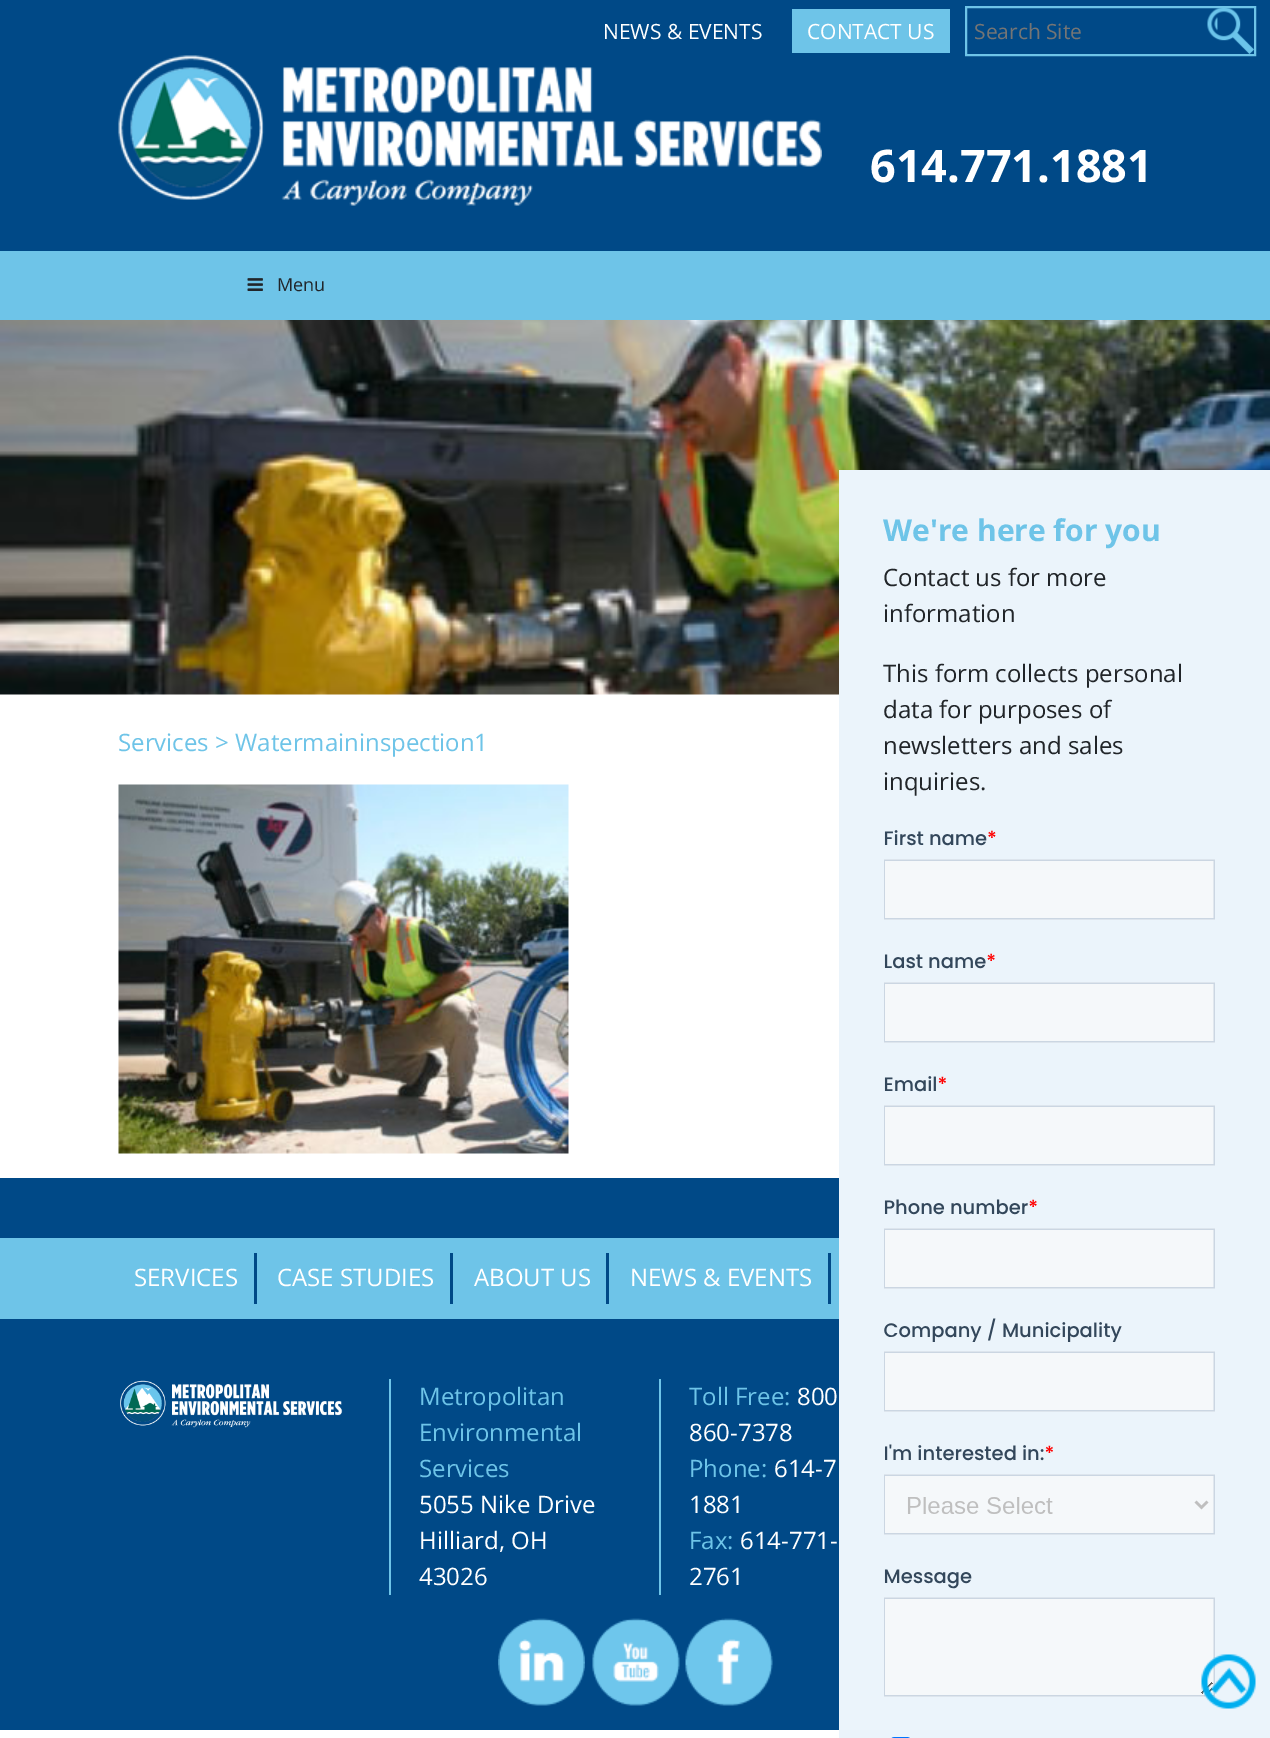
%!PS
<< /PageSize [1270 1738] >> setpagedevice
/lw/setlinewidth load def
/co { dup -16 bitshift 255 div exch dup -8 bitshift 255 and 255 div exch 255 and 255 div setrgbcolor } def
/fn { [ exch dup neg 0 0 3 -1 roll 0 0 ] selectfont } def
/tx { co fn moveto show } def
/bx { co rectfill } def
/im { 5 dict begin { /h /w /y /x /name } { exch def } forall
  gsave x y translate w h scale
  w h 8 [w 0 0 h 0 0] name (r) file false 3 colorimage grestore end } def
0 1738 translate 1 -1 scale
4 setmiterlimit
0 0 1270 1738 16#FFFFFF bx
0 0 1270 251 16#004987 bx
792 9 158 44 16#6EC4E8 bx
(media/1.raw) 1207 8 47 46 im
2 lw
966 7 289 48 rectstroke
(media/2.raw) 118 55 704 151 im
0 251 1270 69 16#6EC4E8 bx
(media/3.raw) 247 278 16 13 im
(media/4.raw) 0 320 1270 375 im
(media/5.raw) 118 784 451 370 im
839 470 431 1268 16#EBF4FB bx
(media/6.raw) 884 830 331 908 im
0 1178 839 552 16#004987 bx
0 1238 839 81 16#6EC4E8 bx
254 1253 3 51 16#004987 bx
450 1253 3 51 16#004987 bx
606 1253 3 51 16#004987 bx
828 1253 3 51 16#004987 bx
(media/7.raw) 120 1380 223 48 im
389 1379 2 216 16#6EC4E8 bx
659 1379 2 216 16#6EC4E8 bx
(media/8.raw) 498 1618 87 88 im
(media/9.raw) 592 1618 88 88 im
(media/10.raw) 685 1618 88 88 im
(media/11.raw) 1201 1654 55 55 im
(NEWS & EVENTS) 603 39 /OpenSans-Regular 21 16#FFFFFF tx
(CONTACT US) 807 39 /OpenSans-Regular 21 16#FFFFFF tx
(Search Site) 974 39 /OpenSans-Regular 21 16#757575 tx
(614.771.1881) 870 182 /OpenSans-Bold 45 16#FFFFFF tx
(Menu) 277 291 /OpenSans-Regular 18 16#212529 tx
(Services > Watermaininspection1) 118 751 /OpenSans-Regular 24 16#6EC4E8 tx
(We're here for you) 883 541 /OpenSans-Bold 30 16#6EC4E8 tx
(Contact us for more) 883 586 /OpenSans-Regular 24 16#212529 tx
(information) 883 622 /OpenSans-Regular 24 16#212529 tx
(This form collects personal) 883 682 /OpenSans-Regular 24 16#212529 tx
(data for purposes of) 883 718 /OpenSans-Regular 24 16#212529 tx
(newsletters and sales) 883 754 /OpenSans-Regular 24 16#212529 tx
(inquiries.) 883 790 /OpenSans-Regular 24 16#212529 tx
(SERVICES) 134 1286 /OpenSans-Regular 24 16#FFFFFF tx
(CASE STUDIES) 277 1286 /OpenSans-Regular 24 16#FFFFFF tx
(ABOUT US) 474 1286 /OpenSans-Regular 24 16#FFFFFF tx
(NEWS & EVENTS) 630 1286 /OpenSans-Regular 24 16#FFFFFF tx
(Metropolitan) 419 1405 /OpenSans-Regular 24 16#6EC4E8 tx
(Environmental) 419 1441 /OpenSans-Regular 24 16#6EC4E8 tx
(Services) 419 1477 /OpenSans-Regular 24 16#6EC4E8 tx
(5055 Nike Drive) 419 1513 /OpenSans-Regular 24 16#FFFFFF tx
(Hilliard, OH) 419 1549 /OpenSans-Regular 24 16#FFFFFF tx
(43026) 419 1585 /OpenSans-Regular 24 16#FFFFFF tx
(Toll Free:) 689 1405 /OpenSans-Regular 24 16#6EC4E8 tx
(800) 797 1405 /OpenSans-Regular 24 16#FFFFFF tx
(860-7378) 689 1441 /OpenSans-Regular 24 16#FFFFFF tx
(Phone:) 689 1477 /OpenSans-Regular 24 16#6EC4E8 tx
(614-7) 774 1477 /OpenSans-Regular 24 16#FFFFFF tx
(1881) 689 1513 /OpenSans-Regular 24 16#FFFFFF tx
(Fax:) 689 1549 /OpenSans-Regular 24 16#6EC4E8 tx
(614-771-) 740 1549 /OpenSans-Regular 24 16#FFFFFF tx
(2761) 689 1585 /OpenSans-Regular 24 16#FFFFFF tx
showpage
